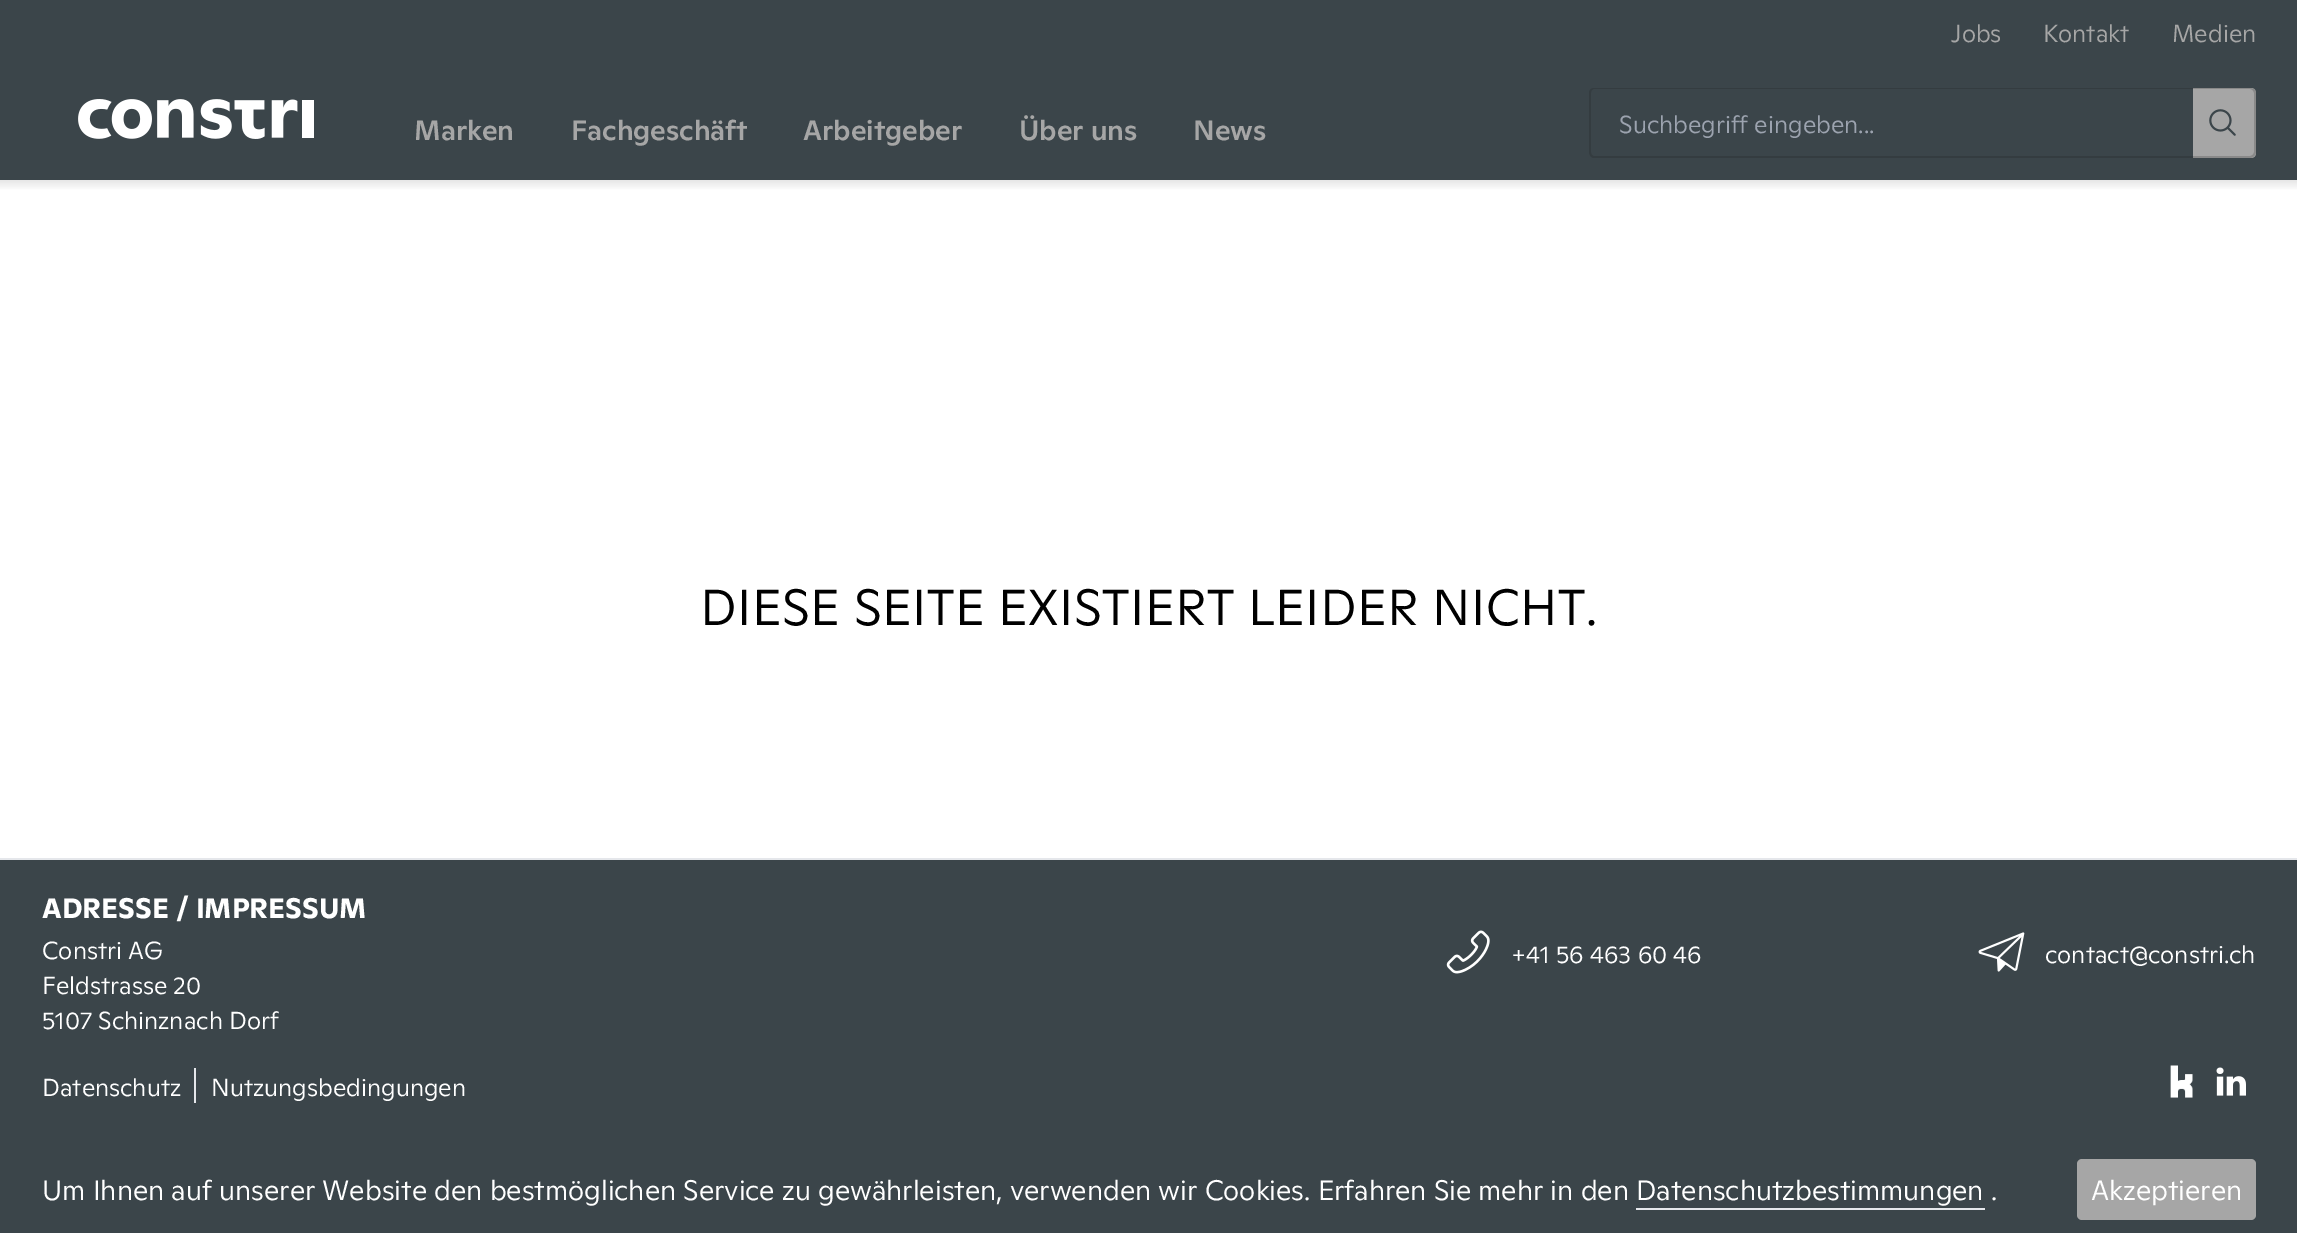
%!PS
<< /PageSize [2297 1233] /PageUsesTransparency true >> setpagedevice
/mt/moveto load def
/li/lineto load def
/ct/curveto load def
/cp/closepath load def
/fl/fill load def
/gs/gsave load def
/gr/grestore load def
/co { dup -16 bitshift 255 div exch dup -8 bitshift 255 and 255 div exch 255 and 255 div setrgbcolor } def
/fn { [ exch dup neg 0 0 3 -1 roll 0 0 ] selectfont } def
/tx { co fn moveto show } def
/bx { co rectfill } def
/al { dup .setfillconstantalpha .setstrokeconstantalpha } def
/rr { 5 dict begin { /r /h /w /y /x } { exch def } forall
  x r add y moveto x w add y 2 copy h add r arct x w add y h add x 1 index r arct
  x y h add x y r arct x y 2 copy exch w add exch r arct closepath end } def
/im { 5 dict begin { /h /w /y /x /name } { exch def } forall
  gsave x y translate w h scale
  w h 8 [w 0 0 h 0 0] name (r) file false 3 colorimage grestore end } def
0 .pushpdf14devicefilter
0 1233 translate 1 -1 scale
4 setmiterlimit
0 0 2297 1233 16#FFFFFF bx
0 0 2297 180 16#3B454A bx
(media/1.raw) 78 99 236 40 im
16#343C40 co
1594 88 mt 2194 88 li 2194 158 li 1594 158 li 1591 158 1589 155 1589 152 ct 1589 93 li 1589 90 1591 88 1594 88 ct cp 1594 89 mt 2194 89 li 2194 156 li 1594 156 li 1592 156 1591 154 1591 152 ct 1591 93 li 1591 91 1592 89 1594 89 ct cp eofill
16#A6A6A6 co
2193 88 mt 2251 88 li 2254 88 2256 90 2256 93 ct 2256 153 li 2256 156 2254 158 2251 158 ct 2193 158 li cp fl
0.2 al
16#161616 co
2193 88 mt 2250 88 li 2253 88 2256 90 2256 93 ct 2256 152 li 2256 155 2253 158 2250 158 ct 2193 158 li cp 2193 89 mt 2250 89 li 2252 89 2254 91 2254 93 ct 2254 152 li 2254 154 2252 156 2250 156 ct 2193 156 li cp eofill
1 al
(media/2.raw) 2209 109 27 27 im
gs 0 180 mt 2297 180 li 2297 190 li 0 190 li cp clip newpath
<< /ShadingType 2 /ColorSpace /DeviceRGB /Coords [1149 180 1149 191] /Extend [true true] /Function << /FunctionType 2 /Domain [0 1] /C0 [.902 .902 .902] /C1 [1 1 1] /N 1 >> >> shfill gr
0 860 2297 373 16#3B454A bx
0 858 2297 2 16#E5E7EB bx
(media/3.raw) 1446 930 44 44 im
(media/4.raw) 1978 932 47 40 im
194 1068 2 35 16#E5E7EB bx
(media/5.raw) 2170 1065 23 33 im
(media/6.raw) 2216 1067 30 29 im
1636 1208 349 2 16#E5E7EB bx
16#A6A6A6 co
2077 1159 179 61 5 rr fl
(Jobs) 1951 42 /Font-Light 24.5 16#A6A6A6 tx
(Kontakt) 2043 42 /Font-Light 24.5 16#A6A6A6 tx
(Medien) 2172 42 /Font-Light 24.5 16#A6A6A6 tx
(Marken) 414 140 /Font-Medium 28 16#A6A6A6 tx
(Fachgeschäft) 571 140 /Font-Medium 28 16#A6A6A6 tx
(Arbeitgeber) 803 140 /Font-Medium 28 16#A6A6A6 tx
(Über uns) 1019 140 /Font-Medium 28 16#A6A6A6 tx
(News) 1193 140 /Font-Medium 28 16#A6A6A6 tx
(Suchbegriff eingeben...) 1619 133 /Font-Light 24.5 16#9CA3AF tx
/Font-Light 50.4 fn
16#000000 co
700 625 mt .5 0 (DIESE SEITE EXISTIERT LEIDER NICHT.) ashow
(ADRESSE / IMPRESSUM) 42 918 /Font-Bold 28 16#FFFFFF tx
(Constri AG) 42 959 /Font-Light 24.5 16#FFFFFF tx
(Feldstrasse 20) 42 994 /Font-Light 24.5 16#FFFFFF tx
(5107 Schinznach Dorf) 42 1029 /Font-Light 24.5 16#FFFFFF tx
(+41 56 463 60 46) 1511 963 /Font-Light 24.5 16#FFFFFF tx
(contact@constri.ch) 2045 963 /Font-Light 24.5 16#FFFFFF tx
(Datenschutz) 42 1096 /Font-Light 24.5 16#FFFFFF tx
(Nutzungsbedingungen) 211 1096 /Font-Light 24.5 16#FFFFFF tx
(Um Ihnen auf unserer Website den bestmöglichen Service zu gewährleisten, verwenden wir Cookies. Erfahren Sie mehr in den Datenschutzbestimmungen .) 42 1200 /Font-Light 28 16#FFFFFF tx
(Akzeptieren) 2091 1200 /Font-Light 28 16#FFFFFF tx
.poppdf14devicefilter showpage
